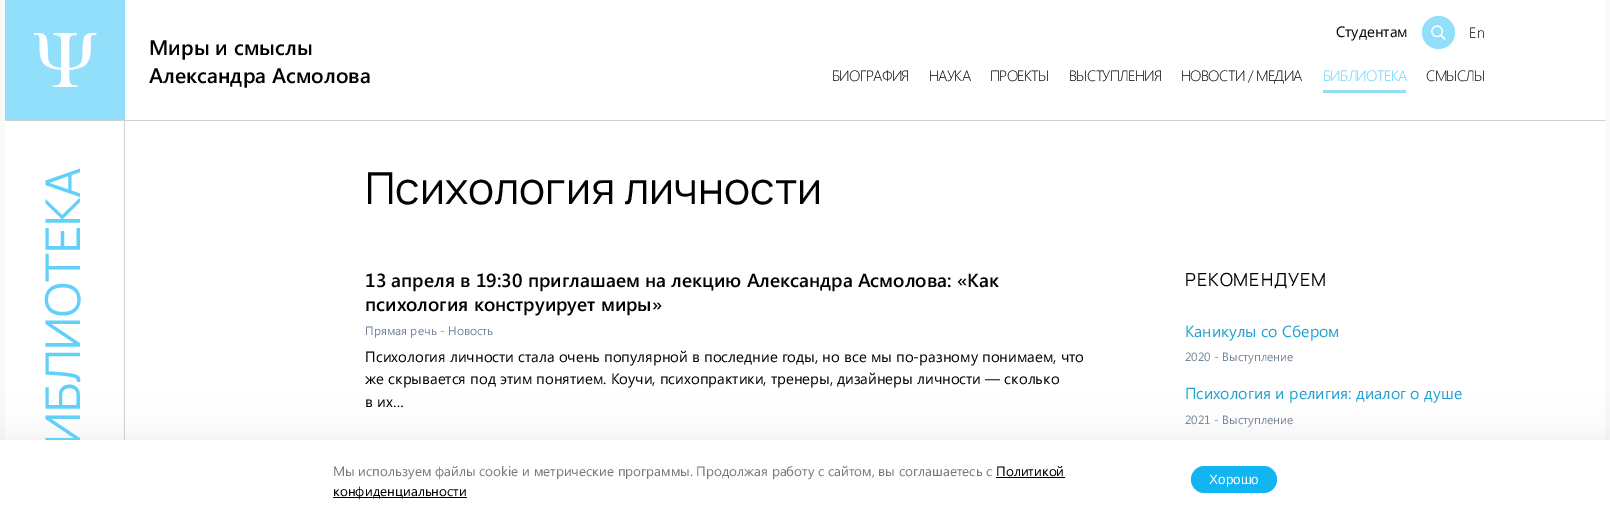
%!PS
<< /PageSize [1610 520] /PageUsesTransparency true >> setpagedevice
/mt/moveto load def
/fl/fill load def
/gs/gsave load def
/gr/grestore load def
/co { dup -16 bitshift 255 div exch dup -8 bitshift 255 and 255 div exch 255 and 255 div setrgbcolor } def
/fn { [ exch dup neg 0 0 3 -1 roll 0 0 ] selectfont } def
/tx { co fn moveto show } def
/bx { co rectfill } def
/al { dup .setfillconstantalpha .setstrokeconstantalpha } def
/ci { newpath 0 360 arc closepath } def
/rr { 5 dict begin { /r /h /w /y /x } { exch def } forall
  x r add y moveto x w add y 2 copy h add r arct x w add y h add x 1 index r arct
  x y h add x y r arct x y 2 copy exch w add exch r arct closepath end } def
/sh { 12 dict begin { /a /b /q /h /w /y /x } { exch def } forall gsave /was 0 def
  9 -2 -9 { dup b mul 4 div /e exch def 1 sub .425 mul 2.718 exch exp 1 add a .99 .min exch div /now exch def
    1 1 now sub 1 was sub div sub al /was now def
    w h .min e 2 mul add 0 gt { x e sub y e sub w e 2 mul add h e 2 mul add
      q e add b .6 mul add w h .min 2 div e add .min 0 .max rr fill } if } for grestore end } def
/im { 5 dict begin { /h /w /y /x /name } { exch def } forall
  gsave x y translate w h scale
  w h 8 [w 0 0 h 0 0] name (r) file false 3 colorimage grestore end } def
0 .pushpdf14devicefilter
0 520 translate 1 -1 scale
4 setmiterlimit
0 0 1610 520 16#F9F9F9 bx
5 0 1600 440 16#FFFFFF bx
5 120 1600 1 16#CCD2D9 bx
5 0 120 120 16#92DFFB bx
(media/1.raw) 34 33 63 54 im
1438.5 32.5 16.5 ci fl
(media/2.raw) 1431 25 15 15 im
1323 90 83 3 16#92DFFB bx
124 121 1 319 16#CCD2D9 bx
16#000000 co
0 440 1610 80 0 20 .07 sh
(Миры и смыслы) 149 55 /SegoeUI-SemiBold 21 16#010101 tx
(Александра Асмолова) 149 83 /SegoeUI-SemiBold 21 16#010101 tx
(Студентам) 1336 37 /SegoeUI-Regular 15 16#010101 tx
(En) 1469 38 /SegoeUI-Light 15 16#010101 tx
832 81 mt -.75 0 (БИОГРАФИЯ) ashow
929 81 mt -.75 0 (НАУКА) ashow
990 81 mt -.75 0 (ПРОЕКТЫ) ashow
1069 81 mt -.75 0 (ВЫСТУПЛЕНИЯ) ashow
1181 81 mt -.75 0 (НОВОСТИ / МЕДИА) ashow
16#61D1F9 co
1323 81 mt -.75 0 (БИБЛИОТЕКА) ashow
16#010101 co
1426 81 mt -.75 0 (СМЫСЛЫ) ashow
/Manrope-Regular 48 fn
16#61D1F9 co
gs 80 474 translate -90 rotate 0 0 mt (БИБЛИОТЕКА) show gr
(Психология личности) 365 204 /Manrope-Regular 44 16#010101 tx
(13 апреля в 19:30 приглашаем на лекцию Александра Асмолова: «Как) 365 287 /SegoeUI-SemiBold 19 16#010101 tx
(психология конструирует миры») 365 311 /SegoeUI-SemiBold 19 16#010101 tx
(Прямая речь - Новость) 365 335 /SegoeUI-Regular 12 16#758699 tx
(Психология личности стала очень популярной в последние годы, но все мы по-разному понимаем, что) 365 362 /SegoeUI-Regular 15 16#010101 tx
(же скрывается под этим понятием. Коучи, психопрактики, тренеры, дизайнеры личности — сколько) 365 384 /SegoeUI-Regular 15 16#010101 tx
(в их…) 365 407 /SegoeUI-Regular 15 16#010101 tx
/Manrope-Regular 18 fn
1185 286 mt .9 0 (РЕКОМЕНДУЕМ) ashow
(Каникулы со Сбером) 1185 337 /SegoeUI-Regular 16 16#24A1D0 tx
(2020 - Выступление) 1185 361 /SegoeUI-Regular 12 16#758699 tx
(Психология и религия: диалог о душе) 1185 399 /SegoeUI-Regular 16 16#24A1D0 tx
(2021 - Выступление) 1185 424 /SegoeUI-Regular 12 16#758699 tx
0 440 1610 80 16#FFFFFF bx
(Мы используем файлы cookie и метрические программы. Продолжая работу с сайтом, вы соглашаетесь с) 333 476 /SegoeUI-Regular 13.5 16#777777 tx
(Политикой) 996 476 /SegoeUI-Regular 13.5 16#010101 tx
996 477 69 1 16#000000 bx
333 497 134 1 16#000000 bx
(конфиденциальности) 333 496 /SegoeUI-Regular 13.5 16#010101 tx
16#11B5F1 co
1191 466 86 27 13.5 rr fl
(Хорошо) 1209 484 /LiberationSans-Regular 13.5 16#FFFFFF tx
.poppdf14devicefilter showpage
